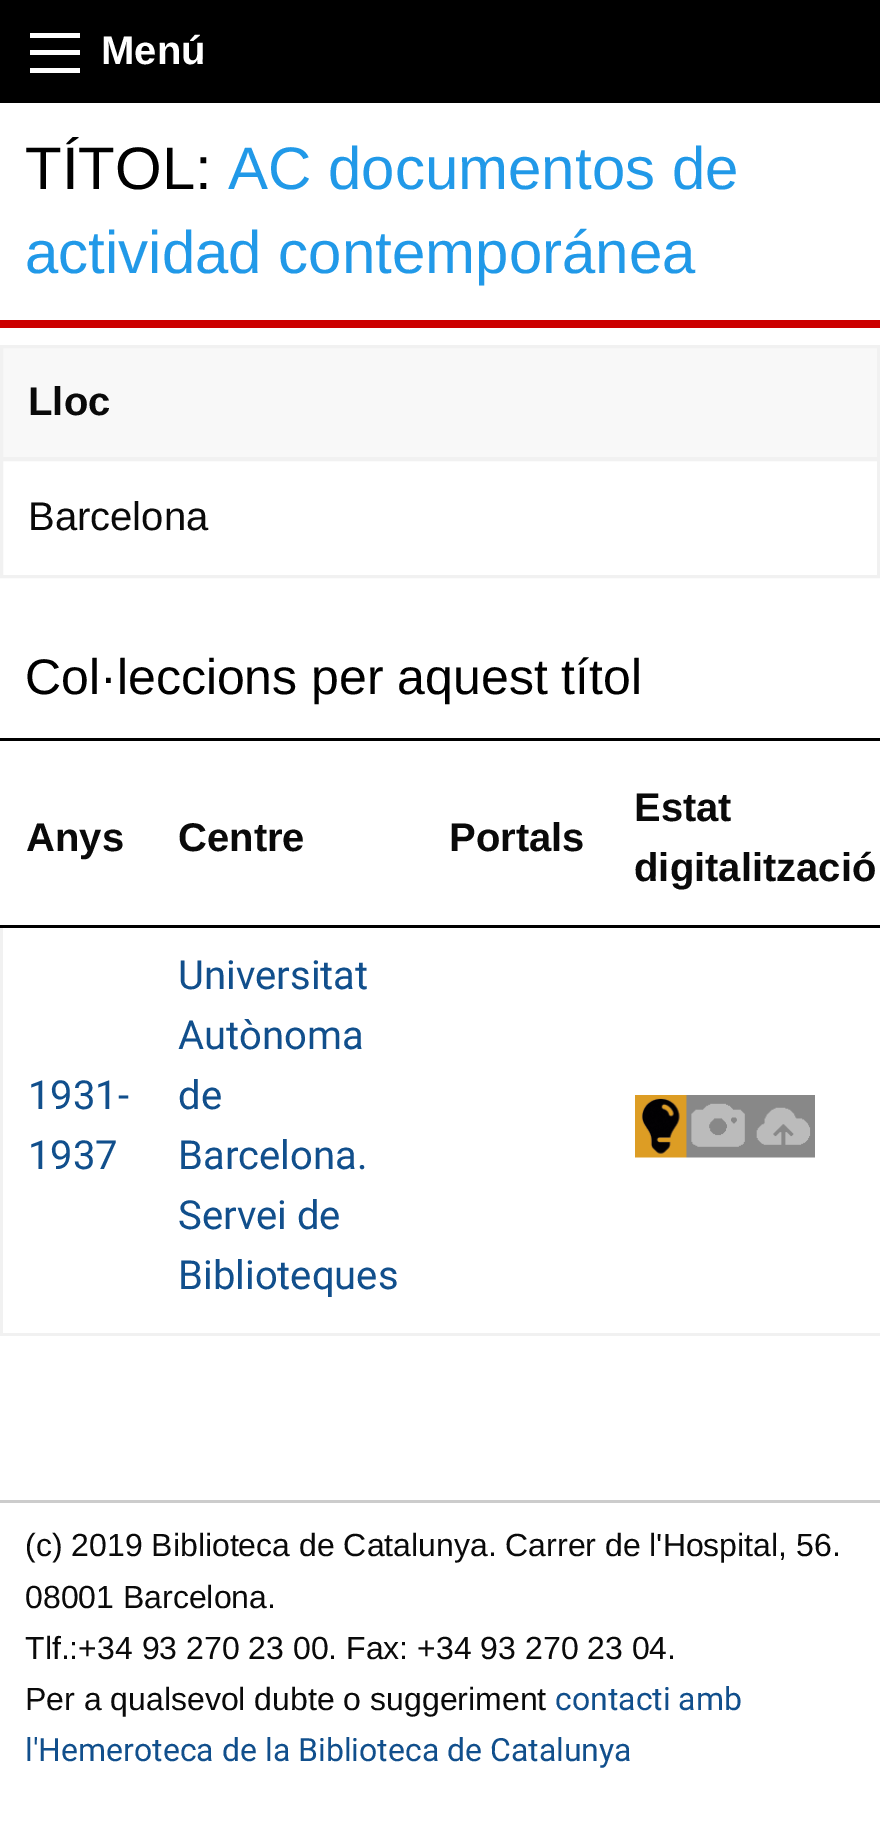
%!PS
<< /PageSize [880 1835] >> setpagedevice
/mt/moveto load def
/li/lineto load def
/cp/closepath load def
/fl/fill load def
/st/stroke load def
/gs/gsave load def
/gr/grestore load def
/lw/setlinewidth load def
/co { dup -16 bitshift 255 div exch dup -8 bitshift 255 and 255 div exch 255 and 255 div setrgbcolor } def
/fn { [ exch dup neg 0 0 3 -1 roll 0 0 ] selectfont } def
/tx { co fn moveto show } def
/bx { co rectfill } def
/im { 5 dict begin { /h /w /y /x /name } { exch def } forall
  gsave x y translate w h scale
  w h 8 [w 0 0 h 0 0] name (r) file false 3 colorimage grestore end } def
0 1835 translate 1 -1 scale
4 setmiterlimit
0 0 880 1835 16#FFFFFF bx
0 0 880 103 16#000000 bx
30 68 50 5 16#FEFEFE bx
30 50 50 5 16#FEFEFE bx
30 33 50 5 16#FEFEFE bx
0 320 880 8 16#CC0000 bx
16#F8F8F8 co
1.5 346.5 mt 878.5 346.5 li 878.5 458.5 li 1.5 458.5 li cp gs fl gr
16#F1F1F1 co
3 lw
st
1.5 459.5 877 117 rectstroke
0 738 880 3 16#000000 bx
0 1333 880 3 16#F1F1F1 bx
0 925 3 410 16#F1F1F1 bx
0 925 880 3 16#000000 bx
(media/1.raw) 635 1095 180 63 im
0 1500 880 3 16#CCCCCC bx
(Menú) 101 64 /LiberationSans-Bold 40 16#FFFFFF tx
(TÍTOL:) 25 189 /LiberationSans-Regular 60 16#000000 tx
(AC documentos de) 228 189 /LiberationSans-Regular 60 16#2199E8 tx
(actividad contemporánea) 25 273 /LiberationSans-Regular 60 16#2199E8 tx
(Lloc) 28 415 /LiberationSans-Bold 40 16#0A0A0A tx
(Barcelona) 28 530 /LiberationSans-Regular 40 16#0A0A0A tx
(Col·leccions per aquest títol) 25 694 /LiberationSans-Regular 50 16#000000 tx
(Anys) 26 851 /LiberationSans-Bold 40 16#0A0A0A tx
(Centre) 178 851 /LiberationSans-Bold 40 16#0A0A0A tx
(Portals) 449 851 /LiberationSans-Bold 40 16#0A0A0A tx
(Estat) 634 821 /LiberationSans-Bold 40 16#0A0A0A tx
(digitalització) 634 881 /LiberationSans-Bold 40 16#0A0A0A tx
(1931-) 28 1109 /Roboto-Regular 40 16#114F8C tx
(1937) 28 1169 /Roboto-Regular 40 16#114F8C tx
(Universitat) 178 989 /Roboto-Regular 40 16#114F8C tx
(Autònoma) 178 1049 /Roboto-Regular 40 16#114F8C tx
(de) 178 1109 /Roboto-Regular 40 16#114F8C tx
(Barcelona.) 178 1169 /Roboto-Regular 40 16#114F8C tx
(Servei de) 178 1229 /Roboto-Regular 40 16#114F8C tx
(Biblioteques) 178 1289 /Roboto-Regular 40 16#114F8C tx
(\(c\) 2019 Biblioteca de Catalunya. Carrer de l'Hospital, 56.) 25 1556 /LiberationSans-Regular 32 16#0A0A0A tx
(08001 Barcelona.) 25 1608 /LiberationSans-Regular 32 16#0A0A0A tx
(Tlf.:+34 93 270 23 00. Fax: +34 93 270 23 04.) 25 1659 /LiberationSans-Regular 32 16#0A0A0A tx
(Per a qualsevol dubte o suggeriment) 25 1710 /LiberationSans-Regular 32 16#0A0A0A tx
(contacti amb) 555 1710 /Roboto-Regular 32 16#114F8C tx
(l'Hemeroteca de la Biblioteca de Catalunya) 25 1761 /Roboto-Regular 32 16#114F8C tx
showpage
